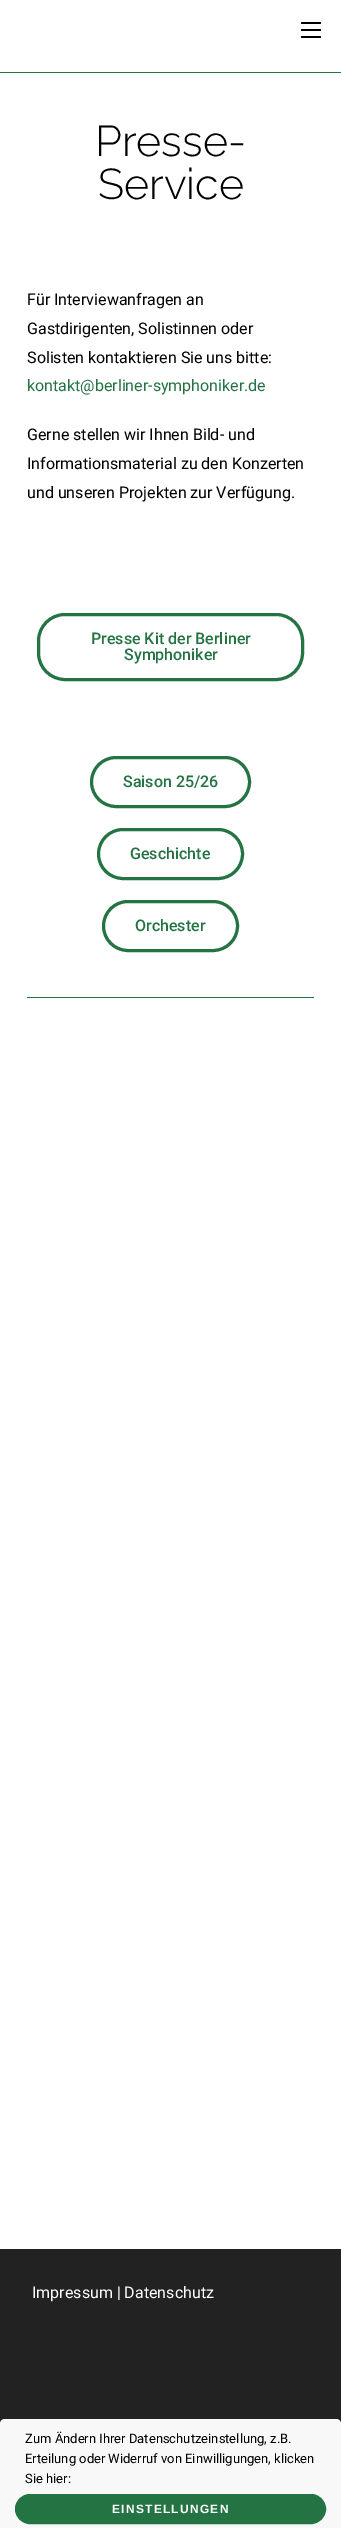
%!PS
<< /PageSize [341 2528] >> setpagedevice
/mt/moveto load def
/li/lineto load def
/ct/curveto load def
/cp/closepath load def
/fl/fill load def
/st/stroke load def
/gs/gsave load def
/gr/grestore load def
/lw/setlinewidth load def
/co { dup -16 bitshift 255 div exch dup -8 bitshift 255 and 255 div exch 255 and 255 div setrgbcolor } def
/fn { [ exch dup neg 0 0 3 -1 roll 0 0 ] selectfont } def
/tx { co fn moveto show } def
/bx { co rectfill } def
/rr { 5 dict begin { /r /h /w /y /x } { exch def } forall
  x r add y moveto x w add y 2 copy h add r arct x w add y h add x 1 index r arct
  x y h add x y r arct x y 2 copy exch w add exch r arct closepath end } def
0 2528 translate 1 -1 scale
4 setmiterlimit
0 0 341 2528 16#FFFFFF bx
0 72 341 1 16#247343 bx
16#000000 co
301 29 20 2 1 rr fl
301 22 20 2 1 rr fl
301 36 20 2 1 rr fl
16#247343 co
3 lw
38.5 614.5 264 65 26.5 rr st
91.5 757.5 158 49 24.5 rr st
98.5 829.5 144 49 24.5 rr st
103.5 901.5 134 49 24.5 rr st
27 997 287 1 16#247343 bx
0 2249 341 175 16#222222 bx
16#F8F8F8 co
5 2419 mt 336 2419 li 339 2419 341 2421 341 2424 ct 341 2528 li 0 2528 li 0 2424 li 0 2421 2 2419 5 2419 ct cp fl
16#247343 co
15.5 2494.5 310 29 14.5 rr gs fl gr
1 lw
st
(Presse-) 95 156 /Raleway-Light 43 16#000000 tx
(Service) 98 199 /Raleway-Light 43 16#000000 tx
(Für Interviewanfragen an) 27 305 /Roboto-Regular 16 16#000000 tx
(Gastdirigenten, Solistinnen oder) 27 334 /Roboto-Regular 16 16#000000 tx
(Solisten kontaktieren Sie uns bitte:) 27 363 /Roboto-Regular 16 16#000000 tx
(kontakt@berliner-symphoniker.de) 27 391 /Roboto-Regular 16 16#247343 tx
(Gerne stellen wir Ihnen Bild- und) 27 440 /Roboto-Regular 16 16#000000 tx
(Informationsmaterial zu den Konzerten) 27 469 /Roboto-Regular 16 16#000000 tx
(und unseren Projekten zur Verfügung.) 27 498 /Roboto-Regular 16 16#000000 tx
(Presse Kit der Berliner) 91 644 /Roboto-Medium 16 16#247343 tx
(Symphoniker) 124 660 /Roboto-Medium 16 16#247343 tx
(Saison 25/26) 123 787 /Roboto-Medium 16 16#247343 tx
(Geschichte) 130 859 /Roboto-Medium 16 16#247343 tx
(Orchester) 135 931 /Roboto-Medium 16 16#247343 tx
(Impressum | Datenschutz) 32 2298 /Roboto-Regular 16 16#FFFFFF tx
(Zum Ändern Ihrer Datenschutzeinstellung, z.B.) 25 2443 /Roboto-Regular 13 16#000000 tx
(Erteilung oder Widerruf von Einwilligungen, klicken) 25 2463 /Roboto-Regular 13 16#000000 tx
(Sie hier:) 25 2483 /Roboto-Regular 13 16#000000 tx
/LiberationSans-Bold 12 fn
16#FFFFFF co
112 2513 mt 1.25 0 (EINSTELLUNGEN) ashow
showpage
